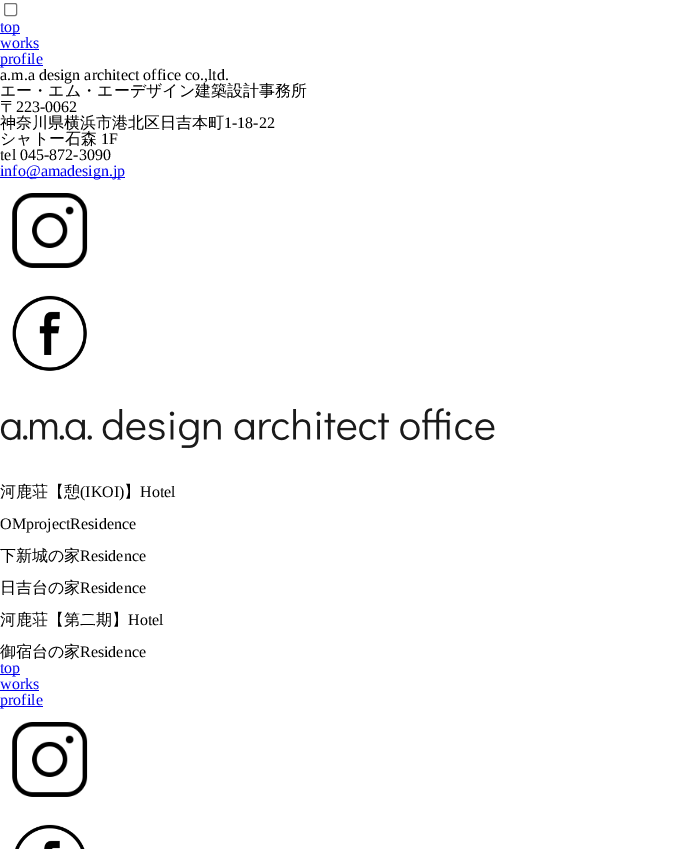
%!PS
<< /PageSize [689 849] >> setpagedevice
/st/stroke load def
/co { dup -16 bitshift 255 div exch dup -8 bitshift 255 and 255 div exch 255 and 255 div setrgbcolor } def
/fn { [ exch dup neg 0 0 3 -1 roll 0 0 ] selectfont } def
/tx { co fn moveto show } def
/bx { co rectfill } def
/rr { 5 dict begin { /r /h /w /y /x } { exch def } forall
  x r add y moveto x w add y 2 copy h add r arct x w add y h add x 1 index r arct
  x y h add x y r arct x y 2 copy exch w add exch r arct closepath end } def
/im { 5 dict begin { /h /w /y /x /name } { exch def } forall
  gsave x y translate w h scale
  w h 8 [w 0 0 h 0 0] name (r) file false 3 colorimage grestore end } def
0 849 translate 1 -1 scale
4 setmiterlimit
0 0 689 849 16#FFFFFF bx
16#767676 co
4.5 3.5 12 12 1.5 rr st
0 33 20 1 16#0000EE bx
0 49 39 1 16#0000EE bx
0 65 43 1 16#0000EE bx
0 177 125 1 16#0000EE bx
(media/1.raw) 12 193 76 75 im
(media/2.raw) 12 295 75 76 im
(media/3.raw) 0 408 495 40 im
0 674 20 1 16#0000EE bx
0 690 39 1 16#0000EE bx
0 706 43 1 16#0000EE bx
(media/1.raw) 12 722 76 75 im
(media/4.raw) 15 824 70 25 im
(top) 0 32 /LiberationSerif-Regular 16 16#0000EE tx
(works) 0 48 /LiberationSerif-Regular 16 16#0000EE tx
(profile) 0 64 /LiberationSerif-Regular 16 16#0000EE tx
(a.m.a design architect office co.,ltd.) 0 80 /LiberationSerif-Regular 16 16#000000 tx
(エー・エム・エーデザイン建築設計事務所) 0 96 /WenQuanYiZenHei-Medium 16 16#000000 tx
(〒) 0 112 /WenQuanYiZenHei-Medium 16 16#000000 tx
(223-0062) 16 112 /LiberationSerif-Regular 16 16#000000 tx
(神奈川県横浜市港北区日吉本町) 0 128 /WenQuanYiZenHei-Medium 16 16#000000 tx
(1-18-22) 224 128 /LiberationSerif-Regular 16 16#000000 tx
(シャトー石森) 0 144 /WenQuanYiZenHei-Medium 16 16#000000 tx
(1F) 101 144 /LiberationSerif-Regular 16 16#000000 tx
(tel 045-872-3090) 0 160 /LiberationSerif-Regular 16 16#000000 tx
(info@amadesign.jp) 0 176 /LiberationSerif-Regular 16 16#0000EE tx
(河鹿荘【憩) 0 497 /WenQuanYiZenHei-Medium 16 16#000000 tx
(\(IKOI\)) 80 497 /LiberationSerif-Regular 16 16#000000 tx
(】) 124 497 /WenQuanYiZenHei-Medium 16 16#000000 tx
(Hotel) 140 497 /LiberationSerif-Regular 16 16#000000 tx
(OMprojectResidence) 0 529 /LiberationSerif-Regular 16 16#000000 tx
(下新城の家) 0 561 /WenQuanYiZenHei-Medium 16 16#000000 tx
(Residence) 80 561 /LiberationSerif-Regular 16 16#000000 tx
(日吉台の家) 0 593 /WenQuanYiZenHei-Medium 16 16#000000 tx
(Residence) 80 593 /LiberationSerif-Regular 16 16#000000 tx
(河鹿荘【第二期】) 0 625 /WenQuanYiZenHei-Medium 16 16#000000 tx
(Hotel) 128 625 /LiberationSerif-Regular 16 16#000000 tx
(御宿台の家) 0 657 /WenQuanYiZenHei-Medium 16 16#000000 tx
(Residence) 80 657 /LiberationSerif-Regular 16 16#000000 tx
(top) 0 673 /LiberationSerif-Regular 16 16#0000EE tx
(works) 0 689 /LiberationSerif-Regular 16 16#0000EE tx
(profile) 0 705 /LiberationSerif-Regular 16 16#0000EE tx
showpage
